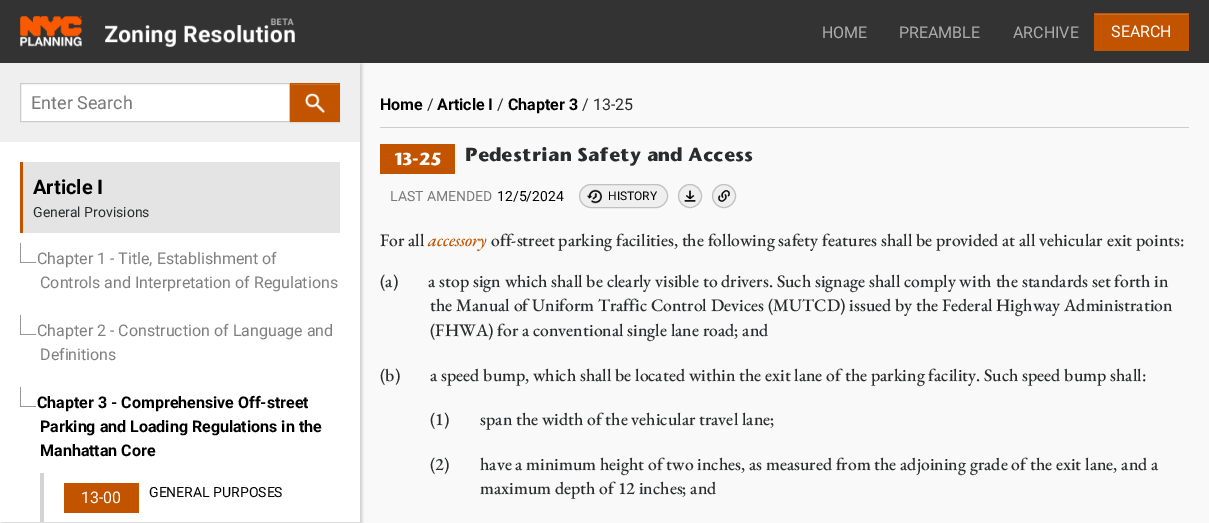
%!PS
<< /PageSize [1209 523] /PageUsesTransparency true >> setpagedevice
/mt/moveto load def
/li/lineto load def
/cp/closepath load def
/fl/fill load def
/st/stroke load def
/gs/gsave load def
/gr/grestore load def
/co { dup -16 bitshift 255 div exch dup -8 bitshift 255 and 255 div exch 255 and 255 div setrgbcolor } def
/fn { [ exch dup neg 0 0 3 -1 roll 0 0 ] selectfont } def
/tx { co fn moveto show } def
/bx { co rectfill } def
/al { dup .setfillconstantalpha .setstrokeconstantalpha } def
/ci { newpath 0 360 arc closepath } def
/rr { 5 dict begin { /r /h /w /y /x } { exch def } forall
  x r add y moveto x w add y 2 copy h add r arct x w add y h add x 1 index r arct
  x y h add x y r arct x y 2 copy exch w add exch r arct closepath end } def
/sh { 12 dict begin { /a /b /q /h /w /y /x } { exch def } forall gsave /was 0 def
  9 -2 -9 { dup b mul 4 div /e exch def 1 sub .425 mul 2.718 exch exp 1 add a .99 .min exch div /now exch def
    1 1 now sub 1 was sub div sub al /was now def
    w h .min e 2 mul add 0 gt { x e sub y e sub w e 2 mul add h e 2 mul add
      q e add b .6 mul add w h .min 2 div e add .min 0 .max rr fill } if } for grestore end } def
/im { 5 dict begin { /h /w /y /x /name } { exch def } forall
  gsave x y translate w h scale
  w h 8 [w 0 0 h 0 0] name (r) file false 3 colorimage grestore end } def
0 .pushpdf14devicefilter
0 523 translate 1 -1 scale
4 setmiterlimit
0 0 1209 523 16#F9F9F9 bx
16#CCCCCC co
2 64 360 459 0 1.5 1 sh
0 0 1209 63 16#333333 bx
(media/1.raw) 20 16 275 31 im
1094 13 95 38 16#C25400 bx
1095 14 93 1 16#CB6E26 bx
0 142 360 380 16#FFFFFF bx
0 63 360 79 16#EFEFEF bx
16#FFFFFF co
20.5 83.5 mt 289.5 83.5 li 289.5 121.5 li 20.5 121.5 li cp gs fl gr
16#CCCCCC co
st
16#000000 co
290 84 50 39 0 .5 .07 sh
290 83 50 39 16#C25400 bx
(media/2.raw) 305 93 20 20 im
291 84 48 1 16#CB6E26 bx
23 162 317 71 16#E4E4E4 bx
20 162 3 71 16#C25400 bx
20 243 1 20 16#979797 bx
20 262 16 1 16#979797 bx
20 315 1 20 16#979797 bx
20 334 16 1 16#979797 bx
20 387 1 20 16#979797 bx
20 406 16 1 16#979797 bx
40 473 4 49 16#D3D3D3 bx
64 483 75 30 16#C25400 bx
380 127 809 1 16#CCCCCC bx
380 144 75 30 16#C25400 bx
16#EFEFEF co
579 184 89 24 12 rr fl
(media/3.raw) 587 189 15 15 im
16#C0C0C0 co
579.5 184.5 88 23 11.5 rr st
16#EFEFEF co
690 196 12 ci fl
(media/4.raw) 684 190 12 12 im
16#C0C0C0 co
690 196 11.5 ci st
16#EFEFEF co
724 196 12 ci fl
(media/5.raw) 718 190 12 12 im
16#C0C0C0 co
724 196 11.5 ci st
(HOME) 822 38 /Roboto-Regular 16 16#ACACAC tx
(PREAMBLE) 899 38 /Roboto-Regular 16 16#ACACAC tx
(ARCHIVE) 1013 38 /Roboto-Regular 16 16#ACACAC tx
(SEARCH) 1111 37 /Roboto-Regular 16 16#FFFFFF tx
(Enter Search) 31 109 /Roboto-Regular 18 16#797979 tx
(Article I) 33 194 /Roboto-Bold 20 16#000000 tx
(General Provisions) 33 217 /Roboto-Regular 14 16#292B2C tx
(Chapter 1 - Title, Establishment of) 37 264 /Roboto-Regular 16 16#808080 tx
(Controls and Interpretation of Regulations) 40 288 /Roboto-Regular 16 16#808080 tx
(Chapter 2 - Construction of Language and) 37 336 /Roboto-Regular 16 16#808080 tx
(Definitions) 40 360 /Roboto-Regular 16 16#808080 tx
(Chapter 3 - Comprehensive Off-street) 37 408 /Roboto-Bold 16 16#000000 tx
(Parking and Loading Regulations in the) 40 432 /Roboto-Bold 16 16#000000 tx
(Manhattan Core) 40 456 /Roboto-Bold 16 16#000000 tx
(13-00) 81 503 /Roboto-Regular 16 16#FFFFFF tx
(GENERAL PURPOSES) 149 497 /Roboto-Regular 14 16#000000 tx
(Home) 380 110 /Roboto-Bold 16 16#000000 tx
(/) 427 110 /Roboto-Regular 16 16#292B2C tx
(Article I) 437 110 /Roboto-Bold 16 16#000000 tx
(/) 497 110 /Roboto-Regular 16 16#292B2C tx
(Chapter 3) 508 110 /Roboto-Bold 16 16#000000 tx
(/ 13-25) 582 110 /Roboto-Regular 16 16#292B2C tx
(13-25) 394 165 /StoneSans-Bold 16 16#FFFFFF tx
(Pedestrian Safety and Access) 465 161 /StoneSans-Bold 17.6 16#292B2C tx
(LAST AMENDED) 390 201 /Roboto-Regular 14 16#797979 tx
(12/5/2024) 497 201 /Roboto-Regular 14 16#000000 tx
(HISTORY) 608 200 /Roboto-Regular 12 16#000000 tx
(For all) 380 246 /EBGaramond-Medium 17.6 16#292B2C tx
(accessory) 428 246 /EBGaramond-MediumItalic 17.6 16#C25400 tx
(off-street parking facilities, the following safety features shall be provided at all vehicular exit points:) 491 246 /EBGaramond-Medium 17.6 16#292B2C tx
(\(a\)) 380 287 /EBGaramond-Medium 17.6 16#292B2C tx
(a stop sign which shall be clearly visible to drivers. Such signage shall comply with the standards set forth in) 428 287 /EBGaramond-Medium 17.6 16#292B2C tx
(the Manual of Uniform Traffic Control Devices \(MUTCD\) issued by the Federal Highway Administration) 430 311 /EBGaramond-Medium 17.6 16#292B2C tx
(\(FHWA\) for a conventional single lane road; and) 430 336 /EBGaramond-Medium 17.6 16#292B2C tx
(\(b\)) 380 381 /EBGaramond-Medium 17.6 16#292B2C tx
(a speed bump, which shall be located within the exit lane of the parking facility. Such speed bump shall:) 430 381 /EBGaramond-Medium 17.6 16#292B2C tx
(\(1\)) 430 425 /EBGaramond-Medium 17.6 16#292B2C tx
(span the width of the vehicular travel lane;) 480 425 /EBGaramond-Medium 17.6 16#292B2C tx
(\(2\)) 430 470 /EBGaramond-Medium 17.6 16#292B2C tx
(have a minimum height of two inches, as measured from the adjoining grade of the exit lane, and a) 480 470 /EBGaramond-Medium 17.6 16#292B2C tx
(maximum depth of 12 inches; and) 480 494 /EBGaramond-Medium 17.6 16#292B2C tx
.poppdf14devicefilter showpage
